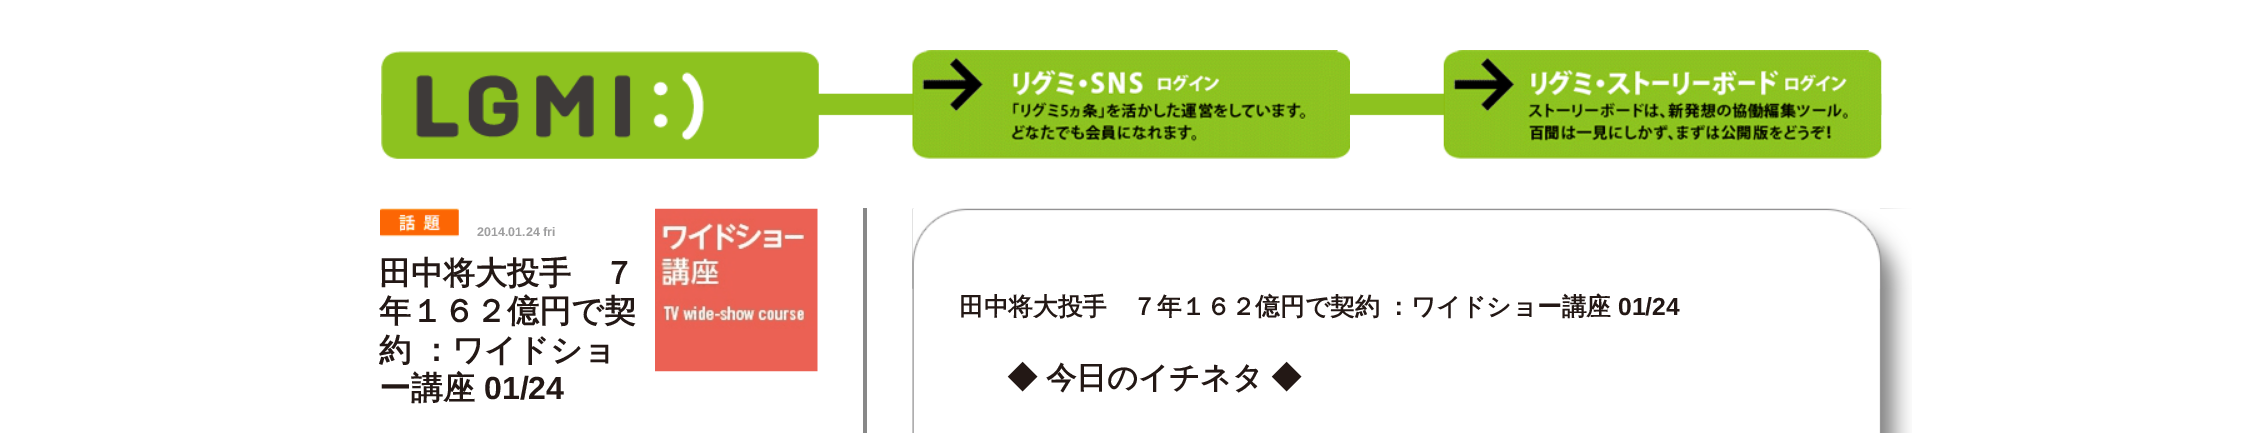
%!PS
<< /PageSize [2260 433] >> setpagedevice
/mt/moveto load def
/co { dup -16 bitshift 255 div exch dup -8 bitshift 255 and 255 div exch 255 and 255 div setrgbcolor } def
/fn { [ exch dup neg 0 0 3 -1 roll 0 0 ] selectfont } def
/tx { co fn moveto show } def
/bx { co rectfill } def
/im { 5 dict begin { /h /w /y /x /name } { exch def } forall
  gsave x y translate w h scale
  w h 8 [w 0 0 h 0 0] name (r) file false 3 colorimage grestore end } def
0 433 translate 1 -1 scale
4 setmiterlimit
0 0 2260 433 16#FFFFFF bx
(media/1.raw) 381 93 1501 23 im
(media/2.raw) 381 51 438 108 im
(media/3.raw) 912 50 438 109 im
(media/4.raw) 1443 50 439 109 im
863 208 4 225 16#888888 bx
(media/5.raw) 380 208 79 29 im
(media/6.raw) 655 208 163 164 im
(media/7.raw) 912 208 1000 225 im
(media/8.raw) 912 208 1000 81 im
(2014.01.24 fri) 477 236 /LiberationSans-Bold 12.5 16#9E9E9F tx
(田中将大投手　７) 379 284 /WenQuanYiZenHei-Bold 32 16#231815 tx
(年１６２億円で契) 379 322 /WenQuanYiZenHei-Bold 32 16#231815 tx
379 361 mt -1 0 32 (約 ：ワイドショ) widthshow
(ー講座) 379 399 /WenQuanYiZenHei-Bold 32 16#231815 tx
(01/24) 484 399 /LiberationSans-Bold 32 16#231815 tx
/WenQuanYiZenHei-Bold 24.7 fn
959 315 mt -1 0 32 (田中将大投手　７年１６２億円で契約 ：ワイドショー講座) widthshow
(01/24) 1618 315 /LiberationSans-Bold 24.7 16#231815 tx
/WenQuanYiZenHei-Bold 30.5 fn
1007 388 mt -1 0 32 (◆ 今日のイチネタ ◆) widthshow
showpage
